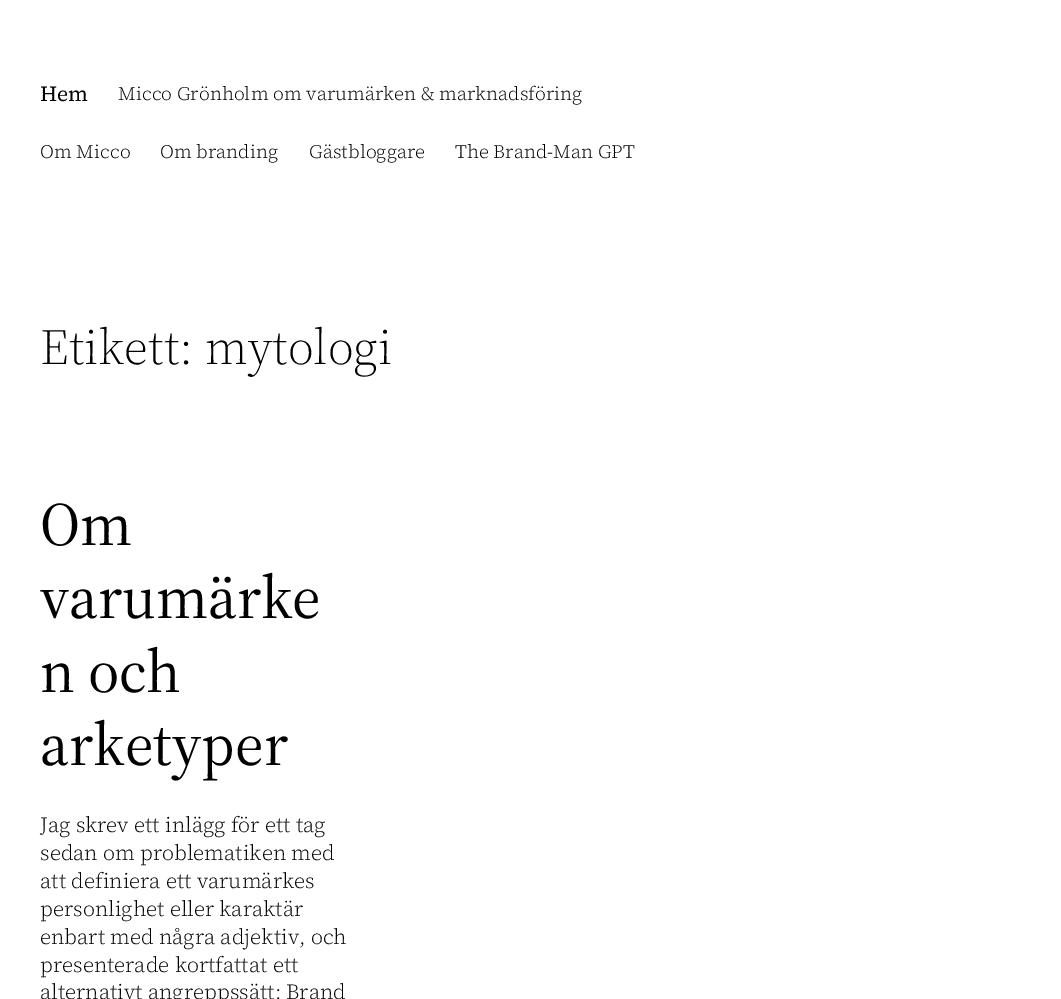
%!PS
<< /PageSize [1061 999] >> setpagedevice
/co { dup -16 bitshift 255 div exch dup -8 bitshift 255 and 255 div exch 255 and 255 div setrgbcolor } def
/fn { [ exch dup neg 0 0 3 -1 roll 0 0 ] selectfont } def
/tx { co fn moveto show } def
/bx { co rectfill } def
0 999 translate 1 -1 scale
4 setmiterlimit
0 0 1061 999 16#FFFFFF bx
(Hem) 40 101 /SourceSerif4-Regular 21.5 16#000000 tx
(Micco Grönholm om varumärken & marknadsföring) 118 100 /SourceSerif4-Light 19 16#000000 tx
(Om Micco) 40 158 /SourceSerif4-Light 19 16#000000 tx
(Om branding) 160 158 /SourceSerif4-Light 19 16#000000 tx
(Gästbloggare) 309 158 /SourceSerif4-Light 19 16#000000 tx
(The Brand-Man GPT) 455 158 /SourceSerif4-Light 19 16#000000 tx
(Etikett: mytologi) 40 364 /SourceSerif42-Light 50 16#000000 tx
(Om) 40 545 /SourceSerif42-Regular 61 16#000000 tx
(varumärke) 40 618 /SourceSerif42-Regular 61 16#000000 tx
(n och) 40 692 /SourceSerif42-Regular 61 16#000000 tx
(arketyper) 40 765 /SourceSerif42-Regular 61 16#000000 tx
(Jag skrev ett inlägg för ett tag) 40 832 /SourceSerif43-Light 21.5 16#000000 tx
(sedan om problematiken med) 40 860 /SourceSerif43-Light 21.5 16#000000 tx
(att definiera ett varumärkes) 40 888 /SourceSerif43-Light 21.5 16#000000 tx
(personlighet eller karaktär) 40 916 /SourceSerif43-Light 21.5 16#000000 tx
(enbart med några adjektiv, och) 40 944 /SourceSerif43-Light 21.5 16#000000 tx
(presenterade kortfattat ett) 40 972 /SourceSerif43-Light 21.5 16#000000 tx
(alternativt angreppssätt: Brand) 40 999 /SourceSerif43-Light 21.5 16#000000 tx
showpage
